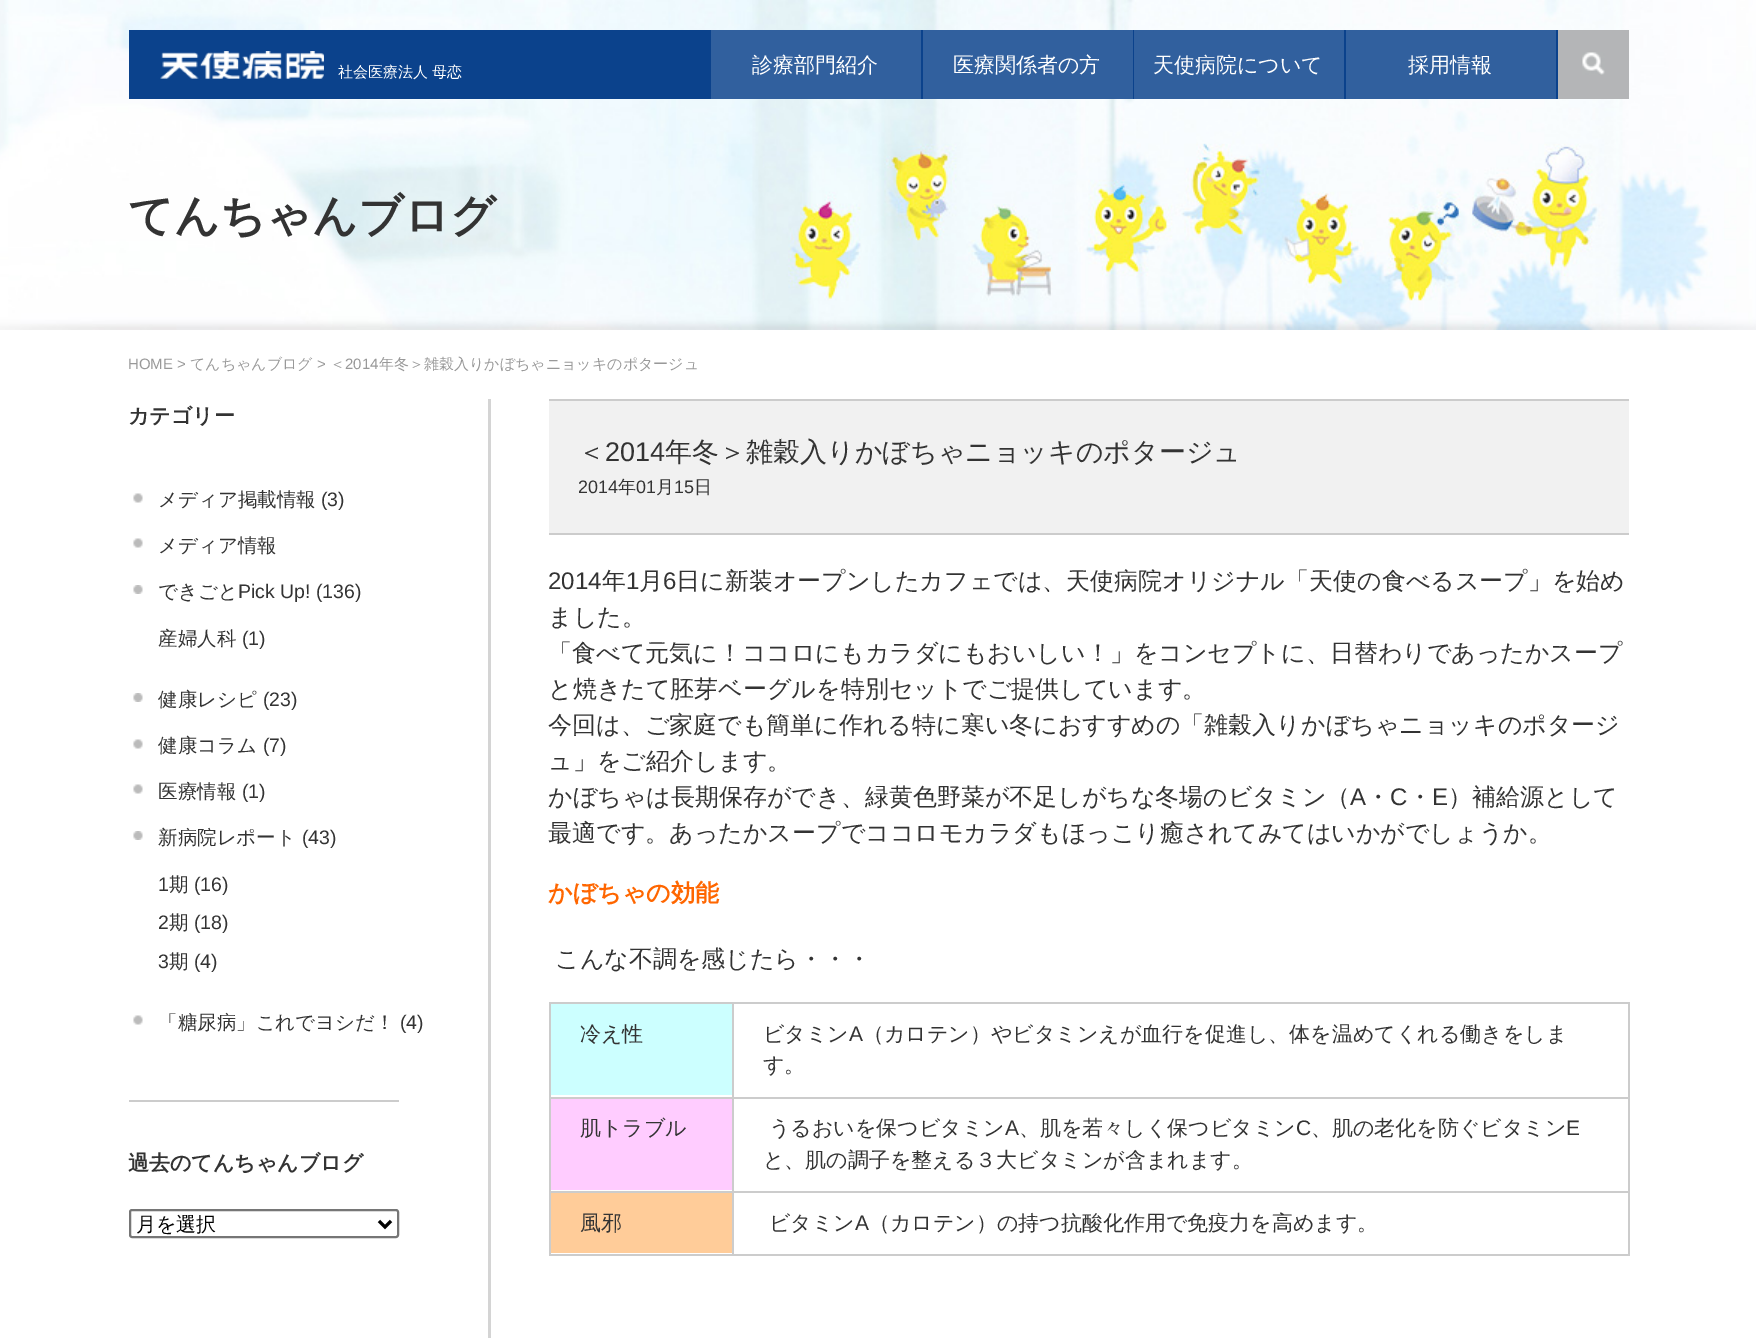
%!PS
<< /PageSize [1756 1338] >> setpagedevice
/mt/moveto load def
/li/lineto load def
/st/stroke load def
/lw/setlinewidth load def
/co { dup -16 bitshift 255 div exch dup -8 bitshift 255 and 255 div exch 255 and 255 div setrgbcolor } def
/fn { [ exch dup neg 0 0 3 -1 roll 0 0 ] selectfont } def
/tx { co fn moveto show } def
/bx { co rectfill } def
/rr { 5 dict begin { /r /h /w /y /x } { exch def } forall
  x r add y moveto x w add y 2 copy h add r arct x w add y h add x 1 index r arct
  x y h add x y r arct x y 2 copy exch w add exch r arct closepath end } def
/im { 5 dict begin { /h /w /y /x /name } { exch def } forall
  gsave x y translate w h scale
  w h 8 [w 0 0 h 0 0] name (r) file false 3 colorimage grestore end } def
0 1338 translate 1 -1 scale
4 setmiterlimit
0 0 1756 1338 16#FFFFFF bx
(media/1.raw) 0 0 1756 330 im
129 30 1217 69 16#0B428C bx
(media/2.raw) 160 51 164 28 im
711 30 210 69 16#31609E bx
923 30 210 69 16#31609E bx
1134 30 210 69 16#31609E bx
1556 30 2 69 16#0B428C bx
1346 30 210 69 16#31609E bx
1558 30 71 69 16#B4B5B7 bx
(media/3.raw) 1582 52 23 23 im
488 399 3 939 16#D4D4D4 bx
(media/4.raw) 133 493 10 10 im
(media/4.raw) 133 538 10 10 im
(media/5.raw) 133 585 10 9 im
(media/5.raw) 133 693 10 9 im
(media/4.raw) 133 739 10 10 im
(media/4.raw) 133 784 10 10 im
(media/5.raw) 133 831 10 9 im
(media/4.raw) 133 1015 10 10 im
129 1100 270 2 16#CCCCCC bx
16#767676 co
2 lw
130 1210 268 27 2 rr st
16#000000 co
3 lw
379 1221 mt 385 1227 li 391 1221 li st
549 401 1080 132 16#F1F1F1 bx
549 399 1080 2 16#CCCCCC bx
549 533 1080 2 16#CCCCCC bx
549 1002 1080 2 16#CCCCCC bx
1628 1002 2 254 16#CCCCCC bx
551 1004 181 91 16#CCFFFF bx
732 1254 897 2 16#CCCCCC bx
732 1191 2 65 16#CCCCCC bx
732 1191 897 2 16#CCCCCC bx
732 1097 2 96 16#CCCCCC bx
732 1097 897 2 16#CCCCCC bx
732 1002 2 96 16#CCCCCC bx
549 1254 185 2 16#CCCCCC bx
549 1191 2 65 16#CCCCCC bx
549 1191 185 2 16#CCCCCC bx
549 1097 2 96 16#CCCCCC bx
549 1097 185 2 16#CCCCCC bx
549 1002 2 96 16#CCCCCC bx
551 1099 181 91 16#FFCCFF bx
551 1193 181 60 16#FFCC99 bx
(社会医療法人 母恋) 338 77 /WenQuanYiZenHei-Medium 15 16#FFFFFF tx
(診療部門紹介) 752 72 /WenQuanYiZenHei-Medium 21 16#FFFFFF tx
(医療関係者の方) 953 72 /WenQuanYiZenHei-Medium 21 16#FFFFFF tx
(天使病院について) 1153 72 /WenQuanYiZenHei-Medium 21 16#FFFFFF tx
(採用情報) 1408 72 /WenQuanYiZenHei-Medium 21 16#FFFFFF tx
(てんちゃんブログ) 128 231 /WenQuanYiZenHei-Bold 45 16#333333 tx
(HOME >) 128 369 /LiberationSans-Regular 15 16#999999 tx
(てんちゃんブログ) 190 369 /WenQuanYiZenHei-Medium 15 16#999999 tx
(>) 317 369 /LiberationSans-Regular 15 16#999999 tx
(＜) 330 369 /WenQuanYiZenHei-Medium 15 16#999999 tx
(2014) 345 369 /LiberationSans-Regular 15 16#999999 tx
(年冬＞雑穀入りかぼちゃニョッキのポタージュ) 379 369 /WenQuanYiZenHei-Medium 15 16#999999 tx
(カテゴリー) 128 423 /WenQuanYiZenHei-Bold 21 16#333333 tx
(メディア掲載情報) 158 506 /WenQuanYiZenHei-Medium 19.5 16#333333 tx
(\(3\)) 321 506 /LiberationSans-Regular 19.5 16#333333 tx
(メディア情報) 158 552 /WenQuanYiZenHei-Medium 19.5 16#333333 tx
(できごと) 158 598 /WenQuanYiZenHei-Medium 19.5 16#333333 tx
(Pick Up! \(136\)) 238 598 /LiberationSans-Regular 19.5 16#333333 tx
(産婦人科) 158 645 /WenQuanYiZenHei-Medium 19.5 16#333333 tx
(\(1\)) 242 645 /LiberationSans-Regular 19.5 16#333333 tx
(健康レシピ) 158 706 /WenQuanYiZenHei-Medium 19.5 16#333333 tx
(\(23\)) 263 706 /LiberationSans-Regular 19.5 16#333333 tx
(健康コラム) 158 752 /WenQuanYiZenHei-Medium 19.5 16#333333 tx
(\(7\)) 263 752 /LiberationSans-Regular 19.5 16#333333 tx
(医療情報) 158 798 /WenQuanYiZenHei-Medium 19.5 16#333333 tx
(\(1\)) 242 798 /LiberationSans-Regular 19.5 16#333333 tx
(新病院レポート) 158 844 /WenQuanYiZenHei-Medium 19.5 16#333333 tx
(\(43\)) 302 844 /LiberationSans-Regular 19.5 16#333333 tx
(1) 158 891 /LiberationSans-Regular 19.5 16#333333 tx
(期) 169 891 /WenQuanYiZenHei-Medium 19.5 16#333333 tx
(\(16\)) 194 891 /LiberationSans-Regular 19.5 16#333333 tx
(2) 158 929 /LiberationSans-Regular 19.5 16#333333 tx
(期) 169 929 /WenQuanYiZenHei-Medium 19.5 16#333333 tx
(\(18\)) 194 929 /LiberationSans-Regular 19.5 16#333333 tx
(3) 158 968 /LiberationSans-Regular 19.5 16#333333 tx
(期) 169 968 /WenQuanYiZenHei-Medium 19.5 16#333333 tx
(\(4\)) 194 968 /LiberationSans-Regular 19.5 16#333333 tx
(「糖尿病」これでヨシだ！) 158 1029 /WenQuanYiZenHei-Medium 19.5 16#333333 tx
(\(4\)) 400 1029 /LiberationSans-Regular 19.5 16#333333 tx
(過去のてんちゃんブログ) 128 1170 /WenQuanYiZenHei-Bold 21 16#333333 tx
(月を選択) 136 1231 /WenQuanYiZenHei-Medium 20 16#000000 tx
(＜) 578 461 /WenQuanYiZenHei-Medium 27 16#333333 tx
(2014) 605 461 /LiberationSans-Regular 27 16#333333 tx
(年冬＞雑穀入りかぼちゃニョッキのポタージュ) 665 461 /WenQuanYiZenHei-Medium 27 16#333333 tx
(2014) 578 493 /LiberationSans-Regular 18 16#333333 tx
(年) 618 493 /WenQuanYiZenHei-Medium 18 16#333333 tx
(01) 636 493 /LiberationSans-Regular 18 16#333333 tx
(月) 656 493 /WenQuanYiZenHei-Medium 18 16#333333 tx
(15) 674 493 /LiberationSans-Regular 18 16#333333 tx
(日) 694 493 /WenQuanYiZenHei-Medium 18 16#333333 tx
(2014) 548 589 /LiberationSans-Regular 24 16#333333 tx
(年) 602 589 /WenQuanYiZenHei-Medium 24 16#333333 tx
(1) 626 589 /LiberationSans-Regular 24 16#333333 tx
(月) 639 589 /WenQuanYiZenHei-Medium 24 16#333333 tx
(6) 663 589 /LiberationSans-Regular 24 16#333333 tx
(日に新装オープンしたカフェでは、天使病院オリジナル「天使の食べるスープ」を始め) 676 589 /WenQuanYiZenHei-Medium 24 16#333333 tx
(ました。) 548 625 /WenQuanYiZenHei-Medium 24 16#333333 tx
(「食べて元気に！ココロにもカラダにもおいしい！」をコンセプトに、日替わりであったかスープ) 548 661 /WenQuanYiZenHei-Medium 24 16#333333 tx
(と焼きたて胚芽ベーグルを特別セットでご提供しています。) 548 697 /WenQuanYiZenHei-Medium 24 16#333333 tx
(今回は、ご家庭でも簡単に作れる特に寒い冬におすすめの「雑穀入りかぼちゃニョッキのポタージ) 548 733 /WenQuanYiZenHei-Medium 24 16#333333 tx
(ュ」をご紹介します。) 548 769 /WenQuanYiZenHei-Medium 24 16#333333 tx
(かぼちゃは長期保存ができ、緑黄色野菜が不足しがちな冬場のビタミン（) 548 805 /WenQuanYiZenHei-Medium 24 16#333333 tx
(A) 1350 805 /LiberationSans-Regular 24 16#333333 tx
(・) 1366 805 /WenQuanYiZenHei-Medium 24 16#333333 tx
(C) 1390 805 /LiberationSans-Regular 24 16#333333 tx
(・) 1408 805 /WenQuanYiZenHei-Medium 24 16#333333 tx
(E) 1432 805 /LiberationSans-Regular 24 16#333333 tx
(）補給源として) 1448 805 /WenQuanYiZenHei-Medium 24 16#333333 tx
(最適です。あったかスープでココロモカラダもほっこり癒されてみてはいかがでしょうか。) 548 841 /WenQuanYiZenHei-Medium 24 16#333333 tx
(かぼちゃの効能) 548 901 /WenQuanYiZenHei-Bold 24 16#FF6600 tx
(こんな不調を感じたら・・・) 555 967 /WenQuanYiZenHei-Medium 24 16#333333 tx
(冷え性) 580 1041 /WenQuanYiZenHei-Medium 21 16#333333 tx
(ビタミン) 763 1041 /WenQuanYiZenHei-Medium 21 16#333333 tx
(A) 849 1041 /LiberationSans-Regular 21 16#333333 tx
(（カロテン）やビタミンえが血行を促進し、体を温めてくれる働きをしま) 863 1041 /WenQuanYiZenHei-Medium 21 16#333333 tx
(す。) 763 1072 /WenQuanYiZenHei-Medium 21 16#333333 tx
(肌トラブル) 580 1135 /WenQuanYiZenHei-Medium 21 16#333333 tx
(うるおいを保つビタミン) 769 1135 /WenQuanYiZenHei-Medium 21 16#333333 tx
(A) 1005 1135 /LiberationSans-Regular 21 16#333333 tx
(、肌を若々しく保つビタミン) 1019 1135 /WenQuanYiZenHei-Medium 21 16#333333 tx
(C) 1296 1135 /LiberationSans-Regular 21 16#333333 tx
(、肌の老化を防ぐビタミン) 1311 1135 /WenQuanYiZenHei-Medium 21 16#333333 tx
(E) 1566 1135 /LiberationSans-Regular 21 16#333333 tx
(と、肌の調子を整える３大ビタミンが含まれます。) 763 1167 /WenQuanYiZenHei-Medium 21 16#333333 tx
(風邪) 580 1230 /WenQuanYiZenHei-Medium 21 16#333333 tx
(ビタミン) 769 1230 /WenQuanYiZenHei-Medium 21 16#333333 tx
(A) 855 1230 /LiberationSans-Regular 21 16#333333 tx
(（カロテン）の持つ抗酸化作用で免疫力を高めます。) 869 1230 /WenQuanYiZenHei-Medium 21 16#333333 tx
showpage
